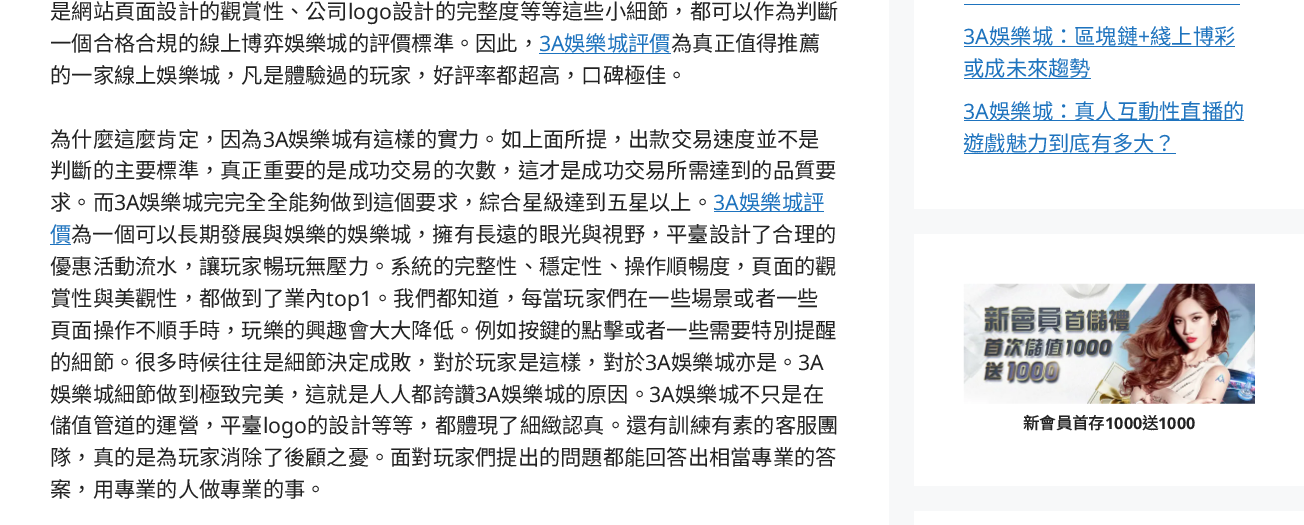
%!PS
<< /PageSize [1304 525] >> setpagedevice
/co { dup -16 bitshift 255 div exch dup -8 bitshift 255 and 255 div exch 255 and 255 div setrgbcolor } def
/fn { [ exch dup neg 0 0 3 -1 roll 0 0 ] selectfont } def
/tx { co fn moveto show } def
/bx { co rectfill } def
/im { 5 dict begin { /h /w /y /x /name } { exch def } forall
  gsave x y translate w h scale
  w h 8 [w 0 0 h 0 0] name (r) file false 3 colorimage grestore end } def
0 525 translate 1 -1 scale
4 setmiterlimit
0 0 1304 525 16#F7F8F9 bx
0 0 889 525 16#FFFFFF bx
539 53 132 1 16#1E73BE bx
714 211 110 1 16#1E73BE bx
50 244 21 1 16#1E73BE bx
914 0 390 209 16#FFFFFF bx
964 4 276 1 16#1E73BE bx
964 46 271 1 16#1E73BE bx
964 78 127 1 16#1E73BE bx
964 120 280 1 16#1E73BE bx
964 153 212 1 16#1E73BE bx
914 234 390 252 16#FFFFFF bx
(media/1.raw) 963 283 292 121 im
914 511 390 14 16#FFFFFF bx
(是網站頁面設計的觀賞性、公司) 50 19 /NotoSansCJKTC-Regular 21.25 16#222222 tx
(logo) 348 19 /NotoSans-Regular 21.25 16#222222 tx
(設計的完整度等等這些小細節，都可以作為判斷) 392 19 /NotoSansCJKTC-Regular 21.25 16#222222 tx
(一個合格合規的線上博弈娛樂城的評價標準。因此，) 50 51 /NotoSansCJKTC-Regular 21.25 16#222222 tx
(3A) 539 51 /NotoSans-Regular 21.25 16#1E73BE tx
(娛樂城評價) 564 51 /NotoSansCJKTC-Regular 21.25 16#1E73BE tx
(為真正值得推薦) 671 51 /NotoSansCJKTC-Regular 21.25 16#222222 tx
(的一家線上娛樂城，凡是體驗過的玩家，好評率都超高，口碑極佳。) 50 83 /NotoSansCJKTC-Regular 21.25 16#222222 tx
(為什麼這麼肯定，因為) 50 147 /NotoSansCJKTC-Regular 21.25 16#222222 tx
(3A) 263 147 /NotoSans-Regular 21.25 16#222222 tx
(娛樂城有這樣的實力。如上面所提，出款交易速度並不是) 288 147 /NotoSansCJKTC-Regular 21.25 16#222222 tx
(判斷的主要標準，真正重要的是成功交易的次數，這才是成功交易所需達到的品質要) 50 178 /NotoSansCJKTC-Regular 21.25 16#222222 tx
(求。而) 50 210 /NotoSansCJKTC-Regular 21.25 16#222222 tx
(3A) 114 210 /NotoSans-Regular 21.25 16#222222 tx
(娛樂城完完全全能夠做到這個要求，綜合星級達到五星以上。) 139 210 /NotoSansCJKTC-Regular 21.25 16#222222 tx
(3A) 713 210 /NotoSans-Regular 21.25 16#1E73BE tx
(娛樂城評) 739 210 /NotoSansCJKTC-Regular 21.25 16#1E73BE tx
(價) 50 242 /NotoSansCJKTC-Regular 21.25 16#1E73BE tx
(為一個可以長期發展與娛樂的娛樂城，擁有長遠的眼光與視野，平臺設計了合理的) 71 242 /NotoSansCJKTC-Regular 21.25 16#222222 tx
(優惠活動流水，讓玩家暢玩無壓力。系統的完整性、穩定性、操作順暢度，頁面的觀) 50 274 /NotoSansCJKTC-Regular 21.25 16#222222 tx
(賞性與美觀性，都做到了業內) 50 306 /NotoSansCJKTC-Regular 21.25 16#222222 tx
(top1) 326 306 /NotoSans-Regular 21.25 16#222222 tx
(。我們都知道，每當玩家們在一些場景或者一些) 372 306 /NotoSansCJKTC-Regular 21.25 16#222222 tx
(頁面操作不順手時，玩樂的興趣會大大降低。例如按鍵的點擊或者一些需要特別提醒) 50 338 /NotoSansCJKTC-Regular 21.25 16#222222 tx
(的細節。很多時候往往是細節決定成敗，對於玩家是這樣，對於) 50 370 /NotoSansCJKTC-Regular 21.25 16#222222 tx
(3A) 645 370 /NotoSans-Regular 21.25 16#222222 tx
(娛樂城亦是。) 671 370 /NotoSansCJKTC-Regular 21.25 16#222222 tx
(3A) 798 370 /NotoSans-Regular 21.25 16#222222 tx
(娛樂城細節做到極致完美，這就是人人都誇讚) 50 402 /NotoSansCJKTC-Regular 21.25 16#222222 tx
(3A) 475 402 /NotoSans-Regular 21.25 16#222222 tx
(娛樂城的原因。) 501 402 /NotoSansCJKTC-Regular 21.25 16#222222 tx
(3A) 649 402 /NotoSans-Regular 21.25 16#222222 tx
(娛樂城不只是在) 675 402 /NotoSansCJKTC-Regular 21.25 16#222222 tx
(儲值管道的運營，平臺) 50 433 /NotoSansCJKTC-Regular 21.25 16#222222 tx
(logo) 263 433 /NotoSans-Regular 21.25 16#222222 tx
(的設計等等，都體現了細緻認真。還有訓練有素的客服團) 307 433 /NotoSansCJKTC-Regular 21.25 16#222222 tx
(隊，真的是為玩家消除了後顧之憂。面對玩家們提出的問題都能回答出相當專業的答) 50 465 /NotoSansCJKTC-Regular 21.25 16#222222 tx
(案，用專業的人做專業的事。) 50 497 /NotoSansCJKTC-Regular 21.25 16#222222 tx
(3A) 963 44 /NotoSans-Regular 21.25 16#1E73BE tx
(娛樂城：區塊鏈) 989 44 /NotoSansCJKTC-Regular 21.25 16#1E73BE tx
(+) 1138 44 /NotoSans-Regular 21.25 16#1E73BE tx
(綫上博彩) 1150 44 /NotoSansCJKTC-Regular 21.25 16#1E73BE tx
(或成未來趨勢) 963 76 /NotoSansCJKTC-Regular 21.25 16#1E73BE tx
(3A) 963 119 /NotoSans-Regular 21.25 16#1E73BE tx
(娛樂城：真人互動性直播的) 989 119 /NotoSansCJKTC-Regular 21.25 16#1E73BE tx
(遊戲魅力到底有多大？) 963 151 /NotoSansCJKTC-Regular 21.25 16#1E73BE tx
(新會員首存) 1023 429 /NotoSansCJKTC-Bold 16.25 16#222222 tx
(1000) 1105 429 /NotoSans-Bold 16.25 16#222222 tx
(送) 1142 429 /NotoSansCJKTC-Bold 16.25 16#222222 tx
(1000) 1158 429 /NotoSans-Bold 16.25 16#222222 tx
showpage
